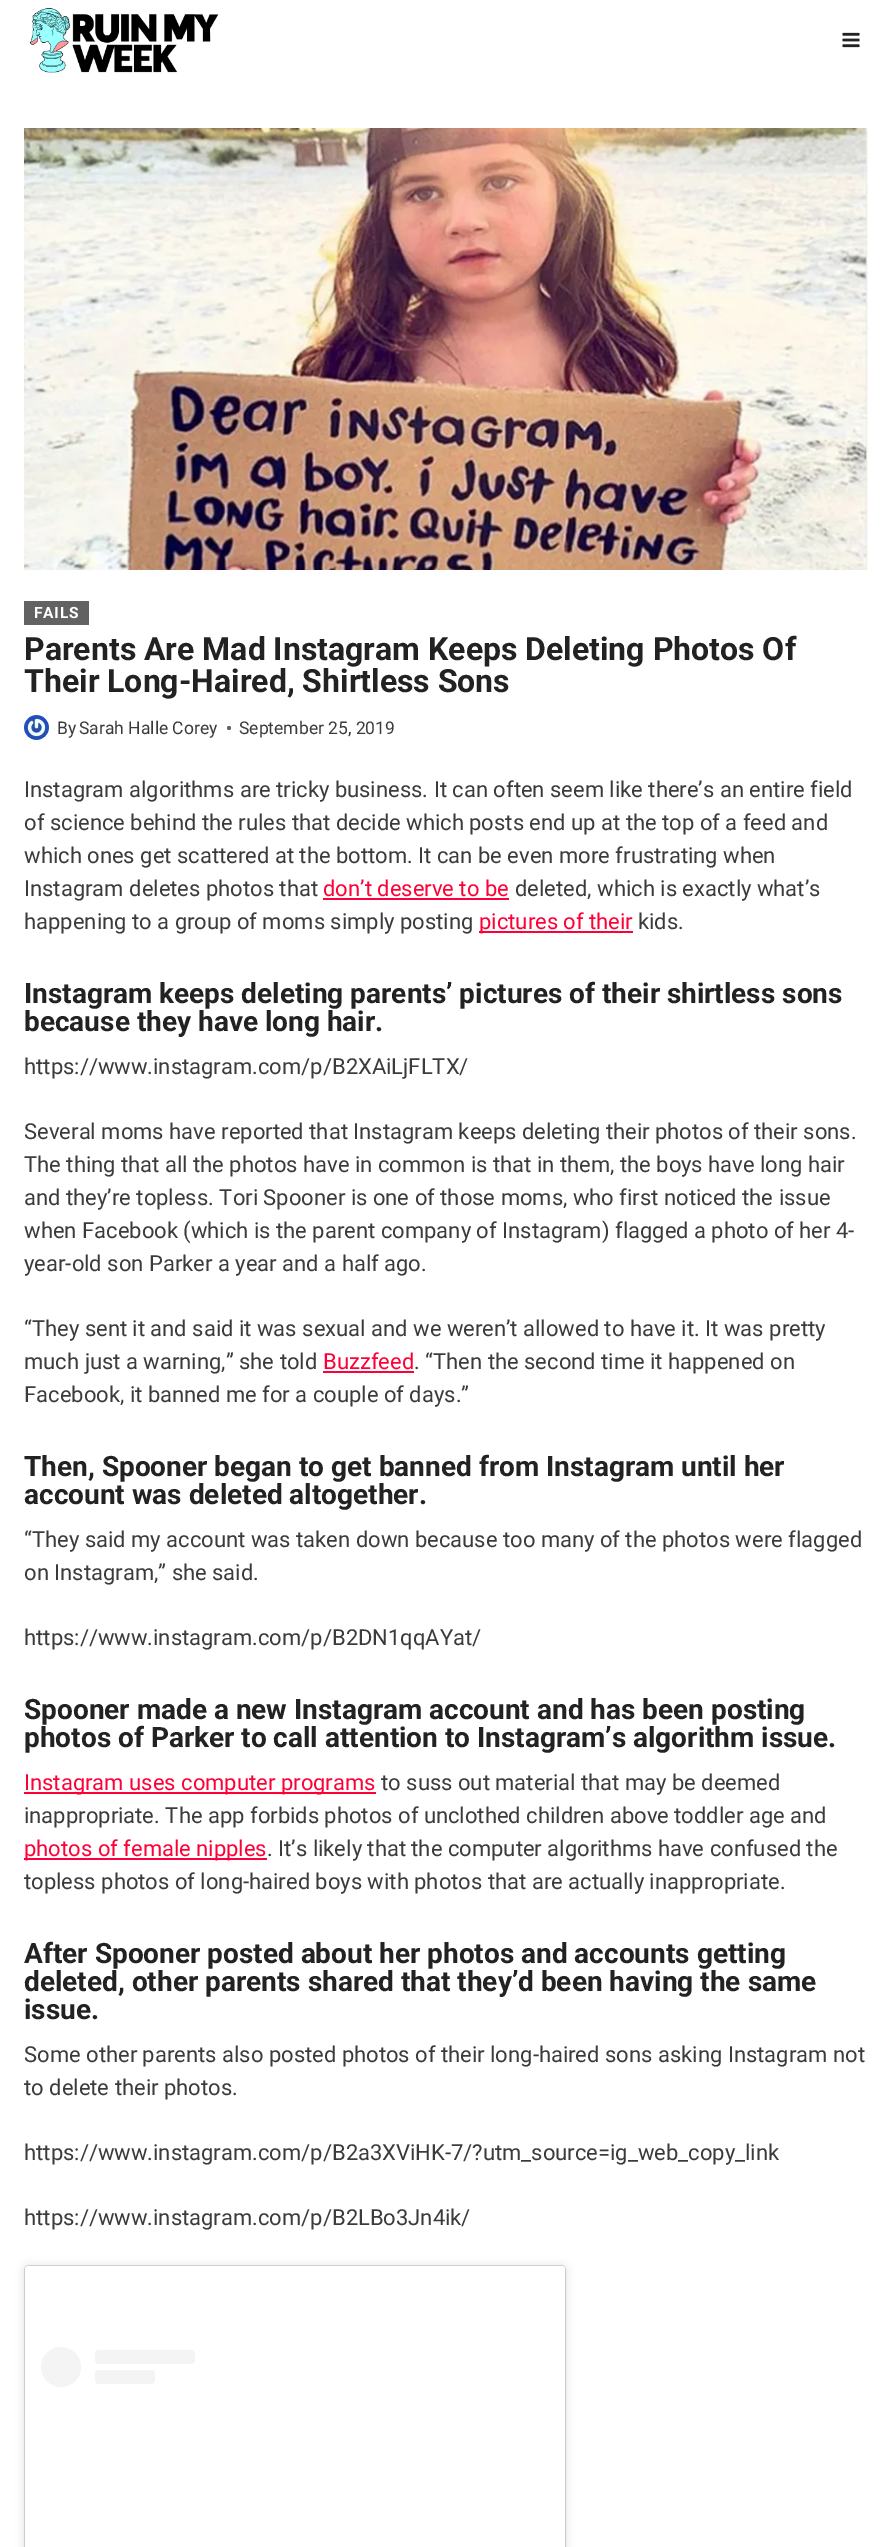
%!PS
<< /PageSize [893 2547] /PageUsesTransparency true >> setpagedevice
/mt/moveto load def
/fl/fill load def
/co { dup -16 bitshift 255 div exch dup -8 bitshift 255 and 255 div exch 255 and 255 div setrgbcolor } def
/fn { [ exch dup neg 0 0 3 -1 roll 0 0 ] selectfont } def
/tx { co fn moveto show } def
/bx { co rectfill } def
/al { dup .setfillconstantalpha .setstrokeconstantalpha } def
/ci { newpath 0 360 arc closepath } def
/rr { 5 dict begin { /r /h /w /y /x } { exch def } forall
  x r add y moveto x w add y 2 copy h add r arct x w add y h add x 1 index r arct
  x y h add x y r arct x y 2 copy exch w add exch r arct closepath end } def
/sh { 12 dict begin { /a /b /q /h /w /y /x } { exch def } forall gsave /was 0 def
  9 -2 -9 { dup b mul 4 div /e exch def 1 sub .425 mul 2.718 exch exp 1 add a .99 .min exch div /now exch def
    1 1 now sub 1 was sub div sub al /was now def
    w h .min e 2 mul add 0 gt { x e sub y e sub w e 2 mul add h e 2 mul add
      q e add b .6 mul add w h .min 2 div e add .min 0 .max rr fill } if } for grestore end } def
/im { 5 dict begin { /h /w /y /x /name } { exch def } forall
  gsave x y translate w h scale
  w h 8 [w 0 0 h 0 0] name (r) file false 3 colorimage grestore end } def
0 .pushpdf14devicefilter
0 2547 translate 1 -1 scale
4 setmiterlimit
0 0 893 2547 16#FFFFFF bx
(media/1.raw) 30 8 189 65 im
(media/2.raw) 842 32 18 16 im
(media/3.raw) 24 128 844 442 im
24 601 65 24 16#626262 bx
(media/4.raw) 24 715 25 25 im
229 728 2 ci fl
323 898 186 2 16#FF0036 bx
479 931 154 2 16#FF0036 bx
323 1371 91 2 16#FF0036 bx
24 1792 352 2 16#FF0036 bx
24 1858 243 2 16#FF0036 bx
16#000000 co
25 2267 540 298 3 5 .15 sh
25 2266 540 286 3 .5 .5 sh
16#FFFFFF co
25 2266 540 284 3 rr fl
16#F4F4F4 co
61 2367 20 ci fl
95 2350 100 14 4 rr fl
95 2370 60 14 4 rr fl
/Roboto-Bold 15.5 fn
16#FFFFFF co
34 618 mt .75 0 (FAILS) ashow
(Parents Are Mad Instagram Keeps Deleting Photos Of) 24 660 /Roboto-Bold 32 16#222222 tx
(Their Long-Haired, Shirtless Sons) 24 692 /Roboto-Bold 32 16#222222 tx
(By) 57 734 /Roboto-Regular 17.5 16#3B3B3B tx
(Sarah Halle Corey) 79 734 /Roboto-Regular 17.5 16#3B3B3B tx
(September 25, 2019) 239 734 /Roboto-Regular 17.5 16#3B3B3B tx
(Instagram algorithms are tricky business. It can often seem like there’s an entire field) 24 797 /Roboto-Regular 22 16#3B3B3B tx
(of science behind the rules that decide which posts end up at the top of a feed and) 24 830 /Roboto-Regular 22 16#3B3B3B tx
(which ones get scattered at the bottom. It can be even more frustrating when) 24 863 /Roboto-Regular 22 16#3B3B3B tx
(Instagram deletes photos that) 24 896 /Roboto-Regular 22 16#3B3B3B tx
(don’t deserve to be) 323 896 /Roboto-Regular 22 16#FF0036 tx
(deleted, which is exactly what’s) 515 896 /Roboto-Regular 22 16#3B3B3B tx
(happening to a group of moms simply posting) 24 929 /Roboto-Regular 22 16#3B3B3B tx
(pictures of their) 479 929 /Roboto-Regular 22 16#FF0036 tx
(kids.) 638 929 /Roboto-Regular 22 16#3B3B3B tx
(Instagram keeps deleting parents’ pictures of their shirtless sons) 24 1003 /Roboto-Bold 28 16#222222 tx
(because they have long hair.) 24 1031 /Roboto-Bold 28 16#222222 tx
(https://www.instagram.com/p/B2XAiLjFLTX/) 24 1074 /Roboto-Regular 22 16#3B3B3B tx
(Several moms have reported that Instagram keeps deleting their photos of their sons.) 24 1139 /Roboto-Regular 22 16#3B3B3B tx
(The thing that all the photos have in common is that in them, the boys have long hair) 24 1172 /Roboto-Regular 22 16#3B3B3B tx
(and they’re topless. Tori Spooner is one of those moms, who first noticed the issue) 24 1205 /Roboto-Regular 22 16#3B3B3B tx
(when Facebook \(which is the parent company of Instagram\) flagged a photo of her 4-) 24 1238 /Roboto-Regular 22 16#3B3B3B tx
(year-old son Parker a year and a half ago.) 24 1271 /Roboto-Regular 22 16#3B3B3B tx
(“They sent it and said it was sexual and we weren’t allowed to have it. It was pretty) 24 1336 /Roboto-Regular 22 16#3B3B3B tx
(much just a warning,” she told) 24 1369 /Roboto-Regular 22 16#3B3B3B tx
(Buzzfeed) 323 1369 /Roboto-Regular 22 16#FF0036 tx
(. “Then the second time it happened on) 414 1369 /Roboto-Regular 22 16#3B3B3B tx
(Facebook, it banned me for a couple of days.”) 24 1402 /Roboto-Regular 22 16#3B3B3B tx
(Then, Spooner began to get banned from Instagram until her) 24 1476 /Roboto-Bold 28 16#222222 tx
(account was deleted altogether.) 24 1504 /Roboto-Bold 28 16#222222 tx
(“They said my account was taken down because too many of the photos were flagged) 24 1547 /Roboto-Regular 22 16#3B3B3B tx
(on Instagram,” she said.) 24 1580 /Roboto-Regular 22 16#3B3B3B tx
(https://www.instagram.com/p/B2DN1qqAYat/) 24 1645 /Roboto-Regular 22 16#3B3B3B tx
(Spooner made a new Instagram account and has been posting) 24 1719 /Roboto-Bold 28 16#222222 tx
(photos of Parker to call attention to Instagram’s algorithm issue.) 24 1747 /Roboto-Bold 28 16#222222 tx
(Instagram uses computer programs) 24 1790 /Roboto-Regular 22 16#FF0036 tx
(to suss out material that may be deemed) 381 1790 /Roboto-Regular 22 16#3B3B3B tx
(inappropriate. The app forbids photos of unclothed children above toddler age and) 24 1823 /Roboto-Regular 22 16#3B3B3B tx
(photos of female nipples) 24 1856 /Roboto-Regular 22 16#FF0036 tx
(. It’s likely that the computer algorithms have confused the) 267 1856 /Roboto-Regular 22 16#3B3B3B tx
(topless photos of long-haired boys with photos that are actually inappropriate.) 24 1889 /Roboto-Regular 22 16#3B3B3B tx
(After Spooner posted about her photos and accounts getting) 24 1963 /Roboto-Bold 28 16#222222 tx
(deleted, other parents shared that they’d been having the same) 24 1991 /Roboto-Bold 28 16#222222 tx
(issue.) 24 2019 /Roboto-Bold 28 16#222222 tx
(Some other parents also posted photos of their long-haired sons asking Instagram not) 24 2062 /Roboto-Regular 22 16#3B3B3B tx
(to delete their photos.) 24 2095 /Roboto-Regular 22 16#3B3B3B tx
(https://www.instagram.com/p/B2a3XViHK-7/?utm_source=ig_web_copy_link) 24 2160 /Roboto-Regular 22 16#3B3B3B tx
(https://www.instagram.com/p/B2LBo3Jn4ik/) 24 2225 /Roboto-Regular 22 16#3B3B3B tx
.poppdf14devicefilter showpage
